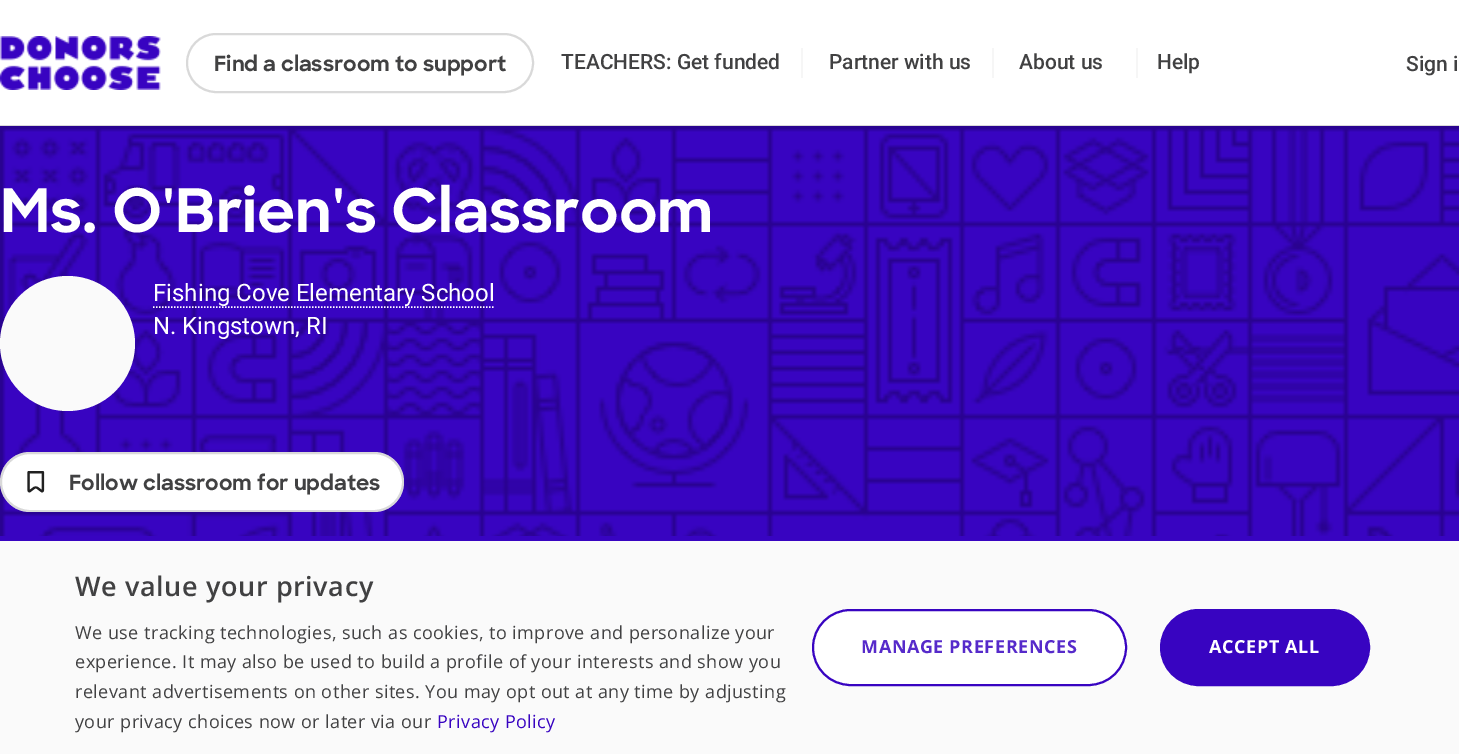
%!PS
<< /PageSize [1459 754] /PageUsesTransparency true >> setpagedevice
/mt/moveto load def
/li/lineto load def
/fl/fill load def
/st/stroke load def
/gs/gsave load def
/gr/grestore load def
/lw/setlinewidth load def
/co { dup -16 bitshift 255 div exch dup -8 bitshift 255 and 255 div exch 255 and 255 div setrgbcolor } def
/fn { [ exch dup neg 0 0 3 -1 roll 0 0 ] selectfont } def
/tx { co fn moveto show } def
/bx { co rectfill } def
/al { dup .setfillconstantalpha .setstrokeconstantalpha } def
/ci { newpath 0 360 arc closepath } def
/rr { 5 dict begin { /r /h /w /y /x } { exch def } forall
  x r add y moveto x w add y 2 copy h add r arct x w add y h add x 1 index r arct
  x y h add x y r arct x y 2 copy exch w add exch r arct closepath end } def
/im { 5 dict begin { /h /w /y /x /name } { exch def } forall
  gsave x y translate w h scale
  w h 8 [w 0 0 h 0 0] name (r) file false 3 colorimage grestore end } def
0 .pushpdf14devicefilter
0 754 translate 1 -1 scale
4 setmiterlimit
0 0 1459 754 16#FFFFFF bx
0 125 1459 1 16#D9D9D9 bx
(media/1.raw) 0 36 161 54 im
2 lw
187 34 346 58 29 rr st
801 48 2 30 16#F6F6F6 bx
992 48 2 30 16#F6F6F6 bx
1136 48 2 30 16#F6F6F6 bx
0 126 1459 415 16#3804C1 bx
(media/2.raw) 0 126 1459 410 im
16#FAFAFA co
67.5 343.5 67.5 ci fl
16#FFFFFF co
1.5 lw
[1.5 1.5] 0 setdash
153 307 mt 495 307 li st
0 452 404 60 30 rr fl
0.2 al
16#414142 co
2 lw
[] 0 setdash
1 453 402 58 29 rr st
1 al
(media/3.raw) 27 471 18 22 im
0 541 1459 213 16#FAFAFA bx
16#FFFFFF co
813 610 313 75 37.5 rr gs fl gr
16#3804C1 co
st
1161 610 208 75 37.5 rr gs fl gr
st
(Find a classroom to support) 214 71 /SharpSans-Bold 21 16#414142 tx
(TEACHERS: Get funded) 561 69 /Roboto-Medium 21 16#414142 tx
(Partner with us) 829 69 /Roboto-Medium 21 16#414142 tx
(About us) 1019 69 /Roboto-Medium 21 16#414142 tx
(Help) 1157 69 /Roboto-Medium 21 16#414142 tx
(Sign i) 1406 71 /Roboto-Medium 21 16#414142 tx
(Ms. O'Brien's Classroom) 0 232 /SharpSans-Bold 60 16#FFFFFF tx
(Fishing Cove Elementary School) 153 301 /Roboto-Regular 24 16#FFFFFF tx
(N. Kingstown, RI) 153 334 /Roboto-Regular 24 16#FFFFFF tx
(Follow classroom for updates) 69 490 /SharpSans-Bold 21 16#414142 tx
/OpenSans-SemiBold 27 fn
75 596 mt .6 0 (We value your privacy) ashow
/OpenSans-Regular 18 fn
75 639 mt .45 0 (We use tracking technologies, such as cookies, to improve and personalize your) ashow
75 668 mt .45 0 (experience. It may also be used to build a profile of your interests and show you) ashow
75 698 mt .45 0 (relevant advertisements on other sites. You may opt out at any time by adjusting) ashow
75 728 mt .45 0 (your privacy choices now or later via our) ashow
16#3804C1 co
437 728 mt .45 0 (Privacy Policy) ashow
/OpenSans-Bold 18 fn
16#562ACA co
861 653 mt .6 0 (MANAGE PREFERENCES) ashow
16#FFFFFF co
1209 653 mt .6 0 (ACCEPT ALL) ashow
.poppdf14devicefilter showpage
